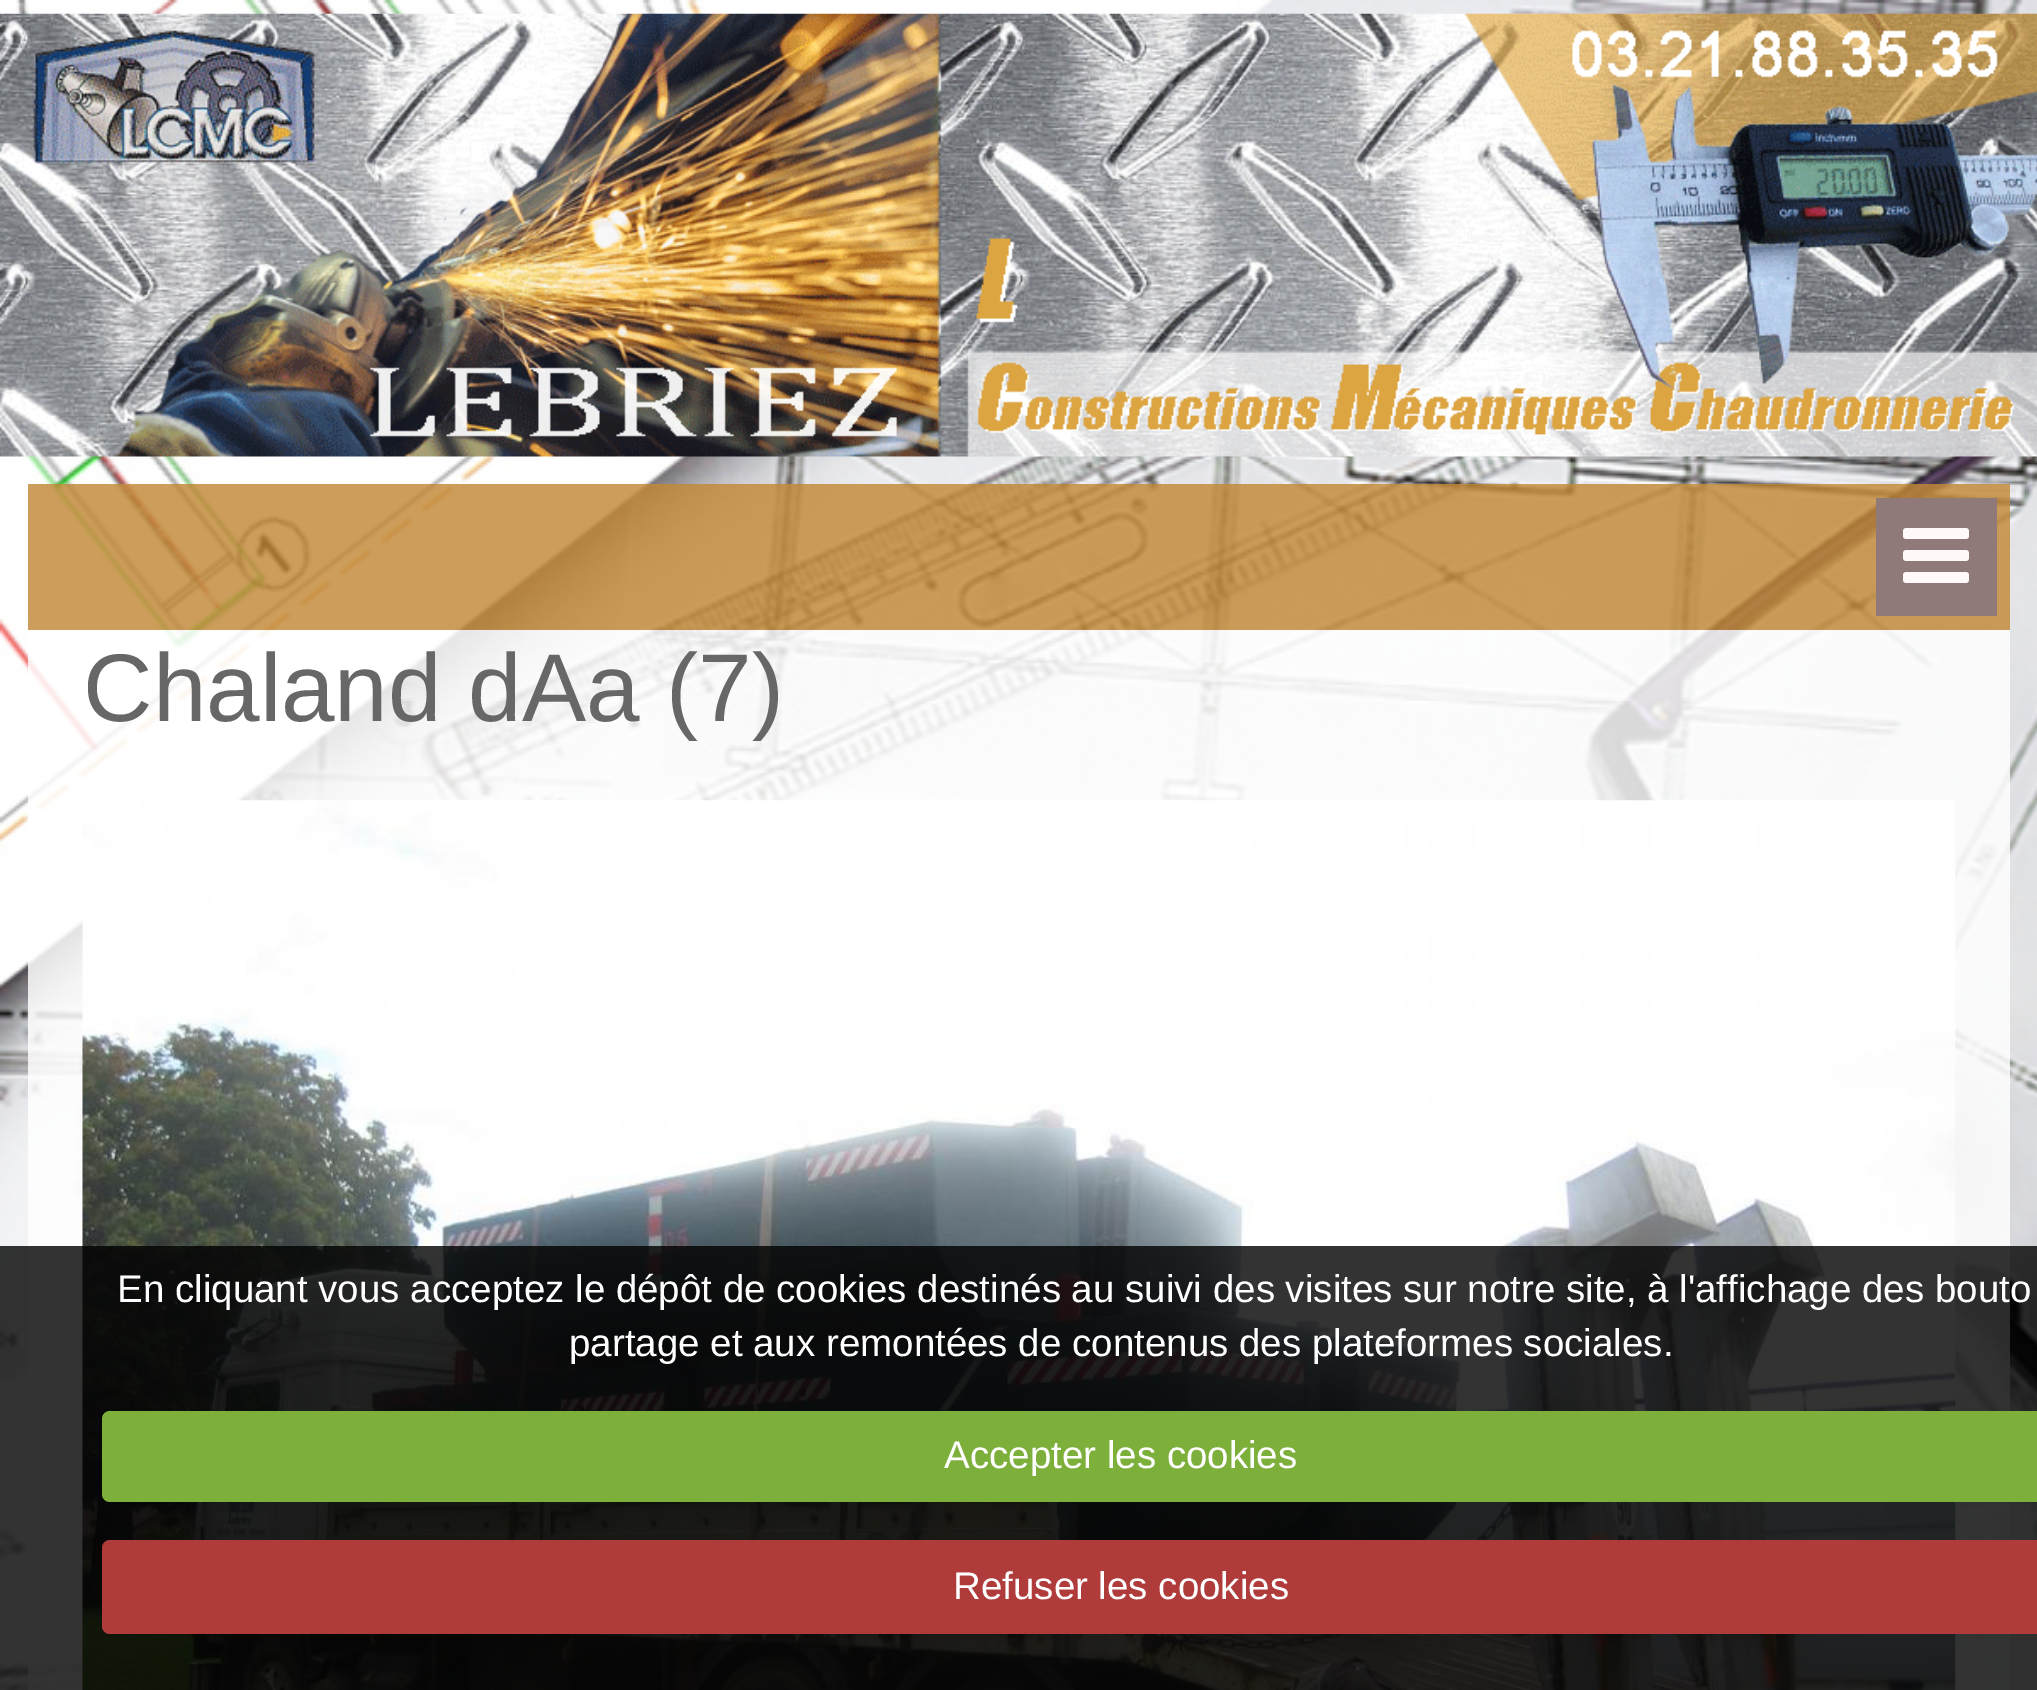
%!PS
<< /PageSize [2037 1690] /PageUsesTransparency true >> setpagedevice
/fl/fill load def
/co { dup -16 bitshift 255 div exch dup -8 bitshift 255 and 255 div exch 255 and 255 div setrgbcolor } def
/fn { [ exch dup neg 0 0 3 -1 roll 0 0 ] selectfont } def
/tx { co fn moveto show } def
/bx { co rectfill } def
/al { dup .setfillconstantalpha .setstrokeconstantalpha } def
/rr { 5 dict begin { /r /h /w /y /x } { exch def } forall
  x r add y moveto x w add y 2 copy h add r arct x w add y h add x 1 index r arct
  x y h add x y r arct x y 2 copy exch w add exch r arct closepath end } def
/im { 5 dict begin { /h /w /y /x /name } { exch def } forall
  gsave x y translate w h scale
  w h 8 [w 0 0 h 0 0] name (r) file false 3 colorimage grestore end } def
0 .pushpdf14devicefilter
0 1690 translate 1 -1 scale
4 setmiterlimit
0 0 2037 1690 16#FFFFFF bx
(media/1.raw) 0 0 2037 1690 im
(media/2.raw) 0 13 2037 444 im
0.82 al
28 484 1982 146 16#C28837 bx
1 al
1876 498 121 118 16#8F7979 bx
(media/3.raw) 1903 528 66 55 im
0.84 al
28 630 1982 1060 16#FFFFFF bx
1 al
(media/4.raw) 82 800 1874 890 im
0.8 al
0 1246 2037 444 16#000000 bx
1 al
16#7DAF3B co
102 1411 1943 91 8 rr fl
16#AF3B3B co
102 1540 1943 94 8 rr fl
(Chaland dAa \(7\)) 83 721 /LiberationSans-Regular 96.25 16#676767 tx
(En cliquant vous acceptez le dépôt de cookies destinés au suivi des visites sur notre site, à l'affichage des bouto) 117 1302 /LiberationSans-Regular 38.5 16#FFFFFF tx
(partage et aux remontées de contenus des plateformes sociales.) 569 1356 /LiberationSans-Regular 38.5 16#FFFFFF tx
(Accepter les cookies) 944 1468 /LiberationSans-Regular 38.5 16#FFFFFF tx
(Refuser les cookies) 953 1599 /LiberationSans-Regular 38.5 16#FFFFFF tx
.poppdf14devicefilter showpage
